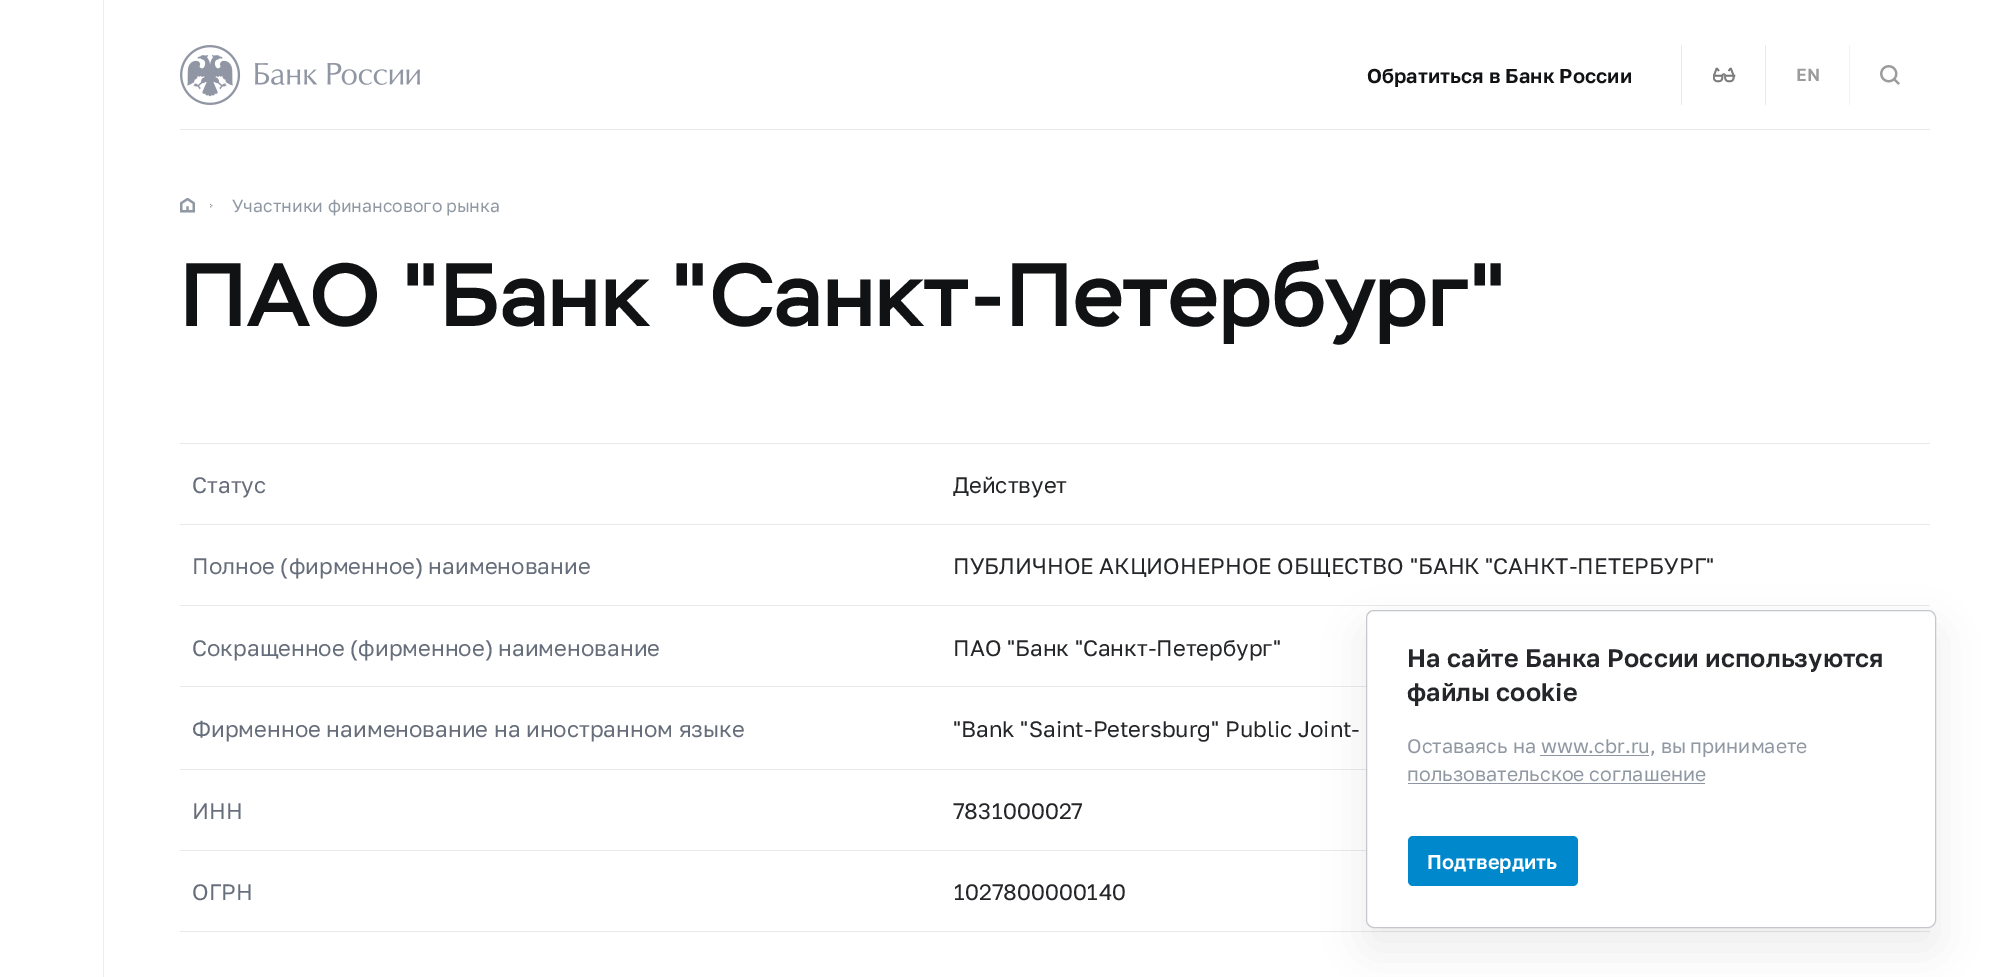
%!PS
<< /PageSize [2012 977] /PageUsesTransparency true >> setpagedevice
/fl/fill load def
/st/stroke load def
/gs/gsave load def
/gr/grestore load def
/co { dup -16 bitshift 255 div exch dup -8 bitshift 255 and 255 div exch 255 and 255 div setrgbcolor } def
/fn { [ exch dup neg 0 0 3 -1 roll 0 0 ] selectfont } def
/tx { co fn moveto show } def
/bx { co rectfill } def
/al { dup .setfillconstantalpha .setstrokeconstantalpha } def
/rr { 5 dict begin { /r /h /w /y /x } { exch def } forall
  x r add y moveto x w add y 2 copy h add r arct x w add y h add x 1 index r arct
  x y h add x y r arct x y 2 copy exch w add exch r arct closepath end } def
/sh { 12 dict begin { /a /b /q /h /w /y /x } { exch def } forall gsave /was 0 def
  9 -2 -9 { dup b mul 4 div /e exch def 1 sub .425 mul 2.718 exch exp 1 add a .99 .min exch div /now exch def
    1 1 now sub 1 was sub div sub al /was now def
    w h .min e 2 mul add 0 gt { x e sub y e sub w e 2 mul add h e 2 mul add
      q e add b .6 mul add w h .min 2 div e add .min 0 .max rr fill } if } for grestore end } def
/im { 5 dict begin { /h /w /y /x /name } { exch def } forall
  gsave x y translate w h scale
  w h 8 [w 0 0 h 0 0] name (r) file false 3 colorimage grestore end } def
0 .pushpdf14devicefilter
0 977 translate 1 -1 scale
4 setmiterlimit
0 0 2012 977 16#FFFFFF bx
180 129 1750 1 16#E8E9EB bx
103 0 1 977 16#EDEDED bx
(media/1.raw) 180 45 240 60 im
1681 45 1 60 16#E8E9EB bx
(media/2.raw) 1713 67 23 16 im
1765 45 1 60 16#E8E9EB bx
1849 45 1 60 16#F1F2F3 bx
(media/3.raw) 1880 65 20 20 im
(media/4.raw) 180 198 15 15 im
(media/5.raw) 210 204 3 4 im
180 443 1750 1 16#E8E9EB bx
180 524 1750 1 16#E8E9EB bx
180 605 1750 1 16#E8E9EB bx
180 686 1186 1 16#E8E9EB bx
180 769 1186 1 16#E8E9EB bx
180 850 1186 1 16#E8E9EB bx
180 931 1750 1 16#E8E9EB bx
16#1F2229 co
1366 630 570 318 8 20 .08 sh
16#FFFFFF co
1366.5 610.5 569 317 7.5 rr gs fl gr
16#C4C7CC co
st
1408 783 297 1 16#8F96A3 bx
16#0088CC co
1408 836 170 50 5 rr fl
(Обратиться в Банк России) 1367 83 /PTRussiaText-Medium 20 16#111214 tx
(EN) 1796 81 /PTRussiaText-Medium 17.5 16#9B9B9C tx
(Участники финансового рынка) 232 212 /PTRussiaText-Regular 17.5 16#9099A3 tx
(ПАО "Банк "Санкт-Петербург") 180 326 /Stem-Medium 89.5 16#111214 tx
(Статус) 192 493 /PTRussiaText-Regular 22.35 16#676E7B tx
(Действует) 953 493 /PTRussiaText-Regular 22.35 16#242629 tx
(Полное \(фирменное\) наименование) 192 574 /PTRussiaText-Regular 22.35 16#676E7B tx
(ПУБЛИЧНОЕ АКЦИОНЕРНОЕ ОБЩЕСТВО "БАНК "САНКТ-ПЕТЕРБУРГ") 953 574 /PTRussiaText-Regular 22.35 16#242629 tx
(Сокращенное \(фирменное\) наименование) 192 656 /PTRussiaText-Regular 22.35 16#676E7B tx
(ПАО "Банк "Санкт-Петербург") 953 656 /PTRussiaText-Regular 22.35 16#242629 tx
(Фирменное наименование на иностранном языке) 192 737 /PTRussiaText-Regular 22.35 16#676E7B tx
("Bank "Saint-Petersburg" Public Joint-) 953 737 /PTRussiaText-Regular 22.35 16#242629 tx
(ИНН) 192 819 /PTRussiaText-Regular 22.35 16#676E7B tx
(7831000027) 953 819 /PTRussiaText-Regular 22.35 16#242629 tx
(ОГРН) 192 900 /PTRussiaText-Regular 22.35 16#676E7B tx
(1027800000140) 953 900 /PTRussiaText-Regular 22.35 16#242629 tx
(На сайте Банка России используются) 1407 667 /PTRussiaText-Medium 25.2 16#242629 tx
(файлы cookie) 1407 701 /PTRussiaText-Medium 25.2 16#242629 tx
(Оставаясь на www.cbr.ru, вы принимаете) 1407 753 /PTRussiaText-Regular 19.6 16#9099A3 tx
1540 755 109 1 16#8F96A3 bx
(пользовательское соглашение) 1407 781 /PTRussiaText-Regular 19.6 16#9099A3 tx
(Подтвердить) 1427 869 /PTRussiaText-Medium 20 16#FFFFFF tx
.poppdf14devicefilter showpage
